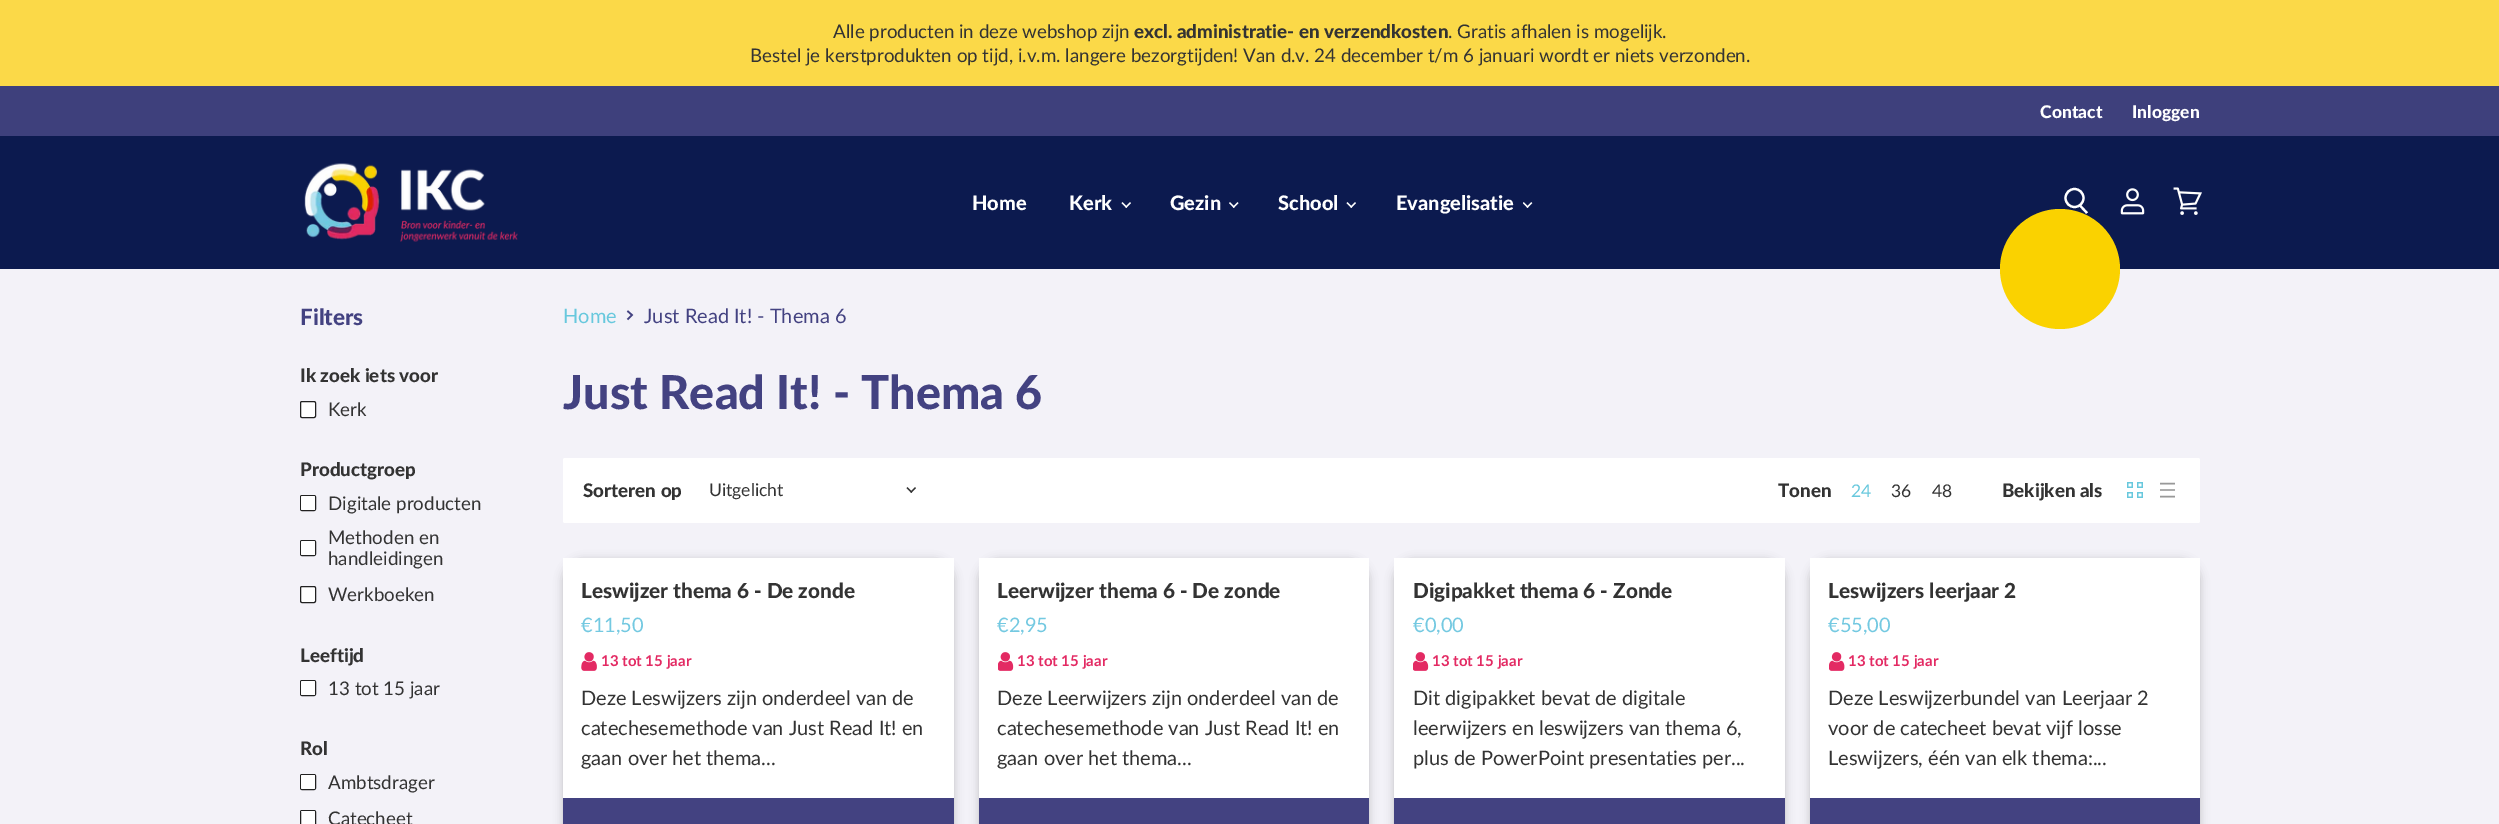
%!PS
<< /PageSize [2499 824] /PageUsesTransparency true >> setpagedevice
/mt/moveto load def
/li/lineto load def
/ct/curveto load def
/cp/closepath load def
/fl/fill load def
/st/stroke load def
/gs/gsave load def
/gr/grestore load def
/lw/setlinewidth load def
/co { dup -16 bitshift 255 div exch dup -8 bitshift 255 and 255 div exch 255 and 255 div setrgbcolor } def
/fn { [ exch dup neg 0 0 3 -1 roll 0 0 ] selectfont } def
/tx { co fn moveto show } def
/bx { co rectfill } def
/al { dup .setfillconstantalpha .setstrokeconstantalpha } def
/ci { newpath 0 360 arc closepath } def
/rr { 5 dict begin { /r /h /w /y /x } { exch def } forall
  x r add y moveto x w add y 2 copy h add r arct x w add y h add x 1 index r arct
  x y h add x y r arct x y 2 copy exch w add exch r arct closepath end } def
/sh { 12 dict begin { /a /b /q /h /w /y /x } { exch def } forall gsave /was 0 def
  9 -2 -9 { dup b mul 4 div /e exch def 1 sub .425 mul 2.718 exch exp 1 add a .99 .min exch div /now exch def
    1 1 now sub 1 was sub div sub al /was now def
    w h .min e 2 mul add 0 gt { x e sub y e sub w e 2 mul add h e 2 mul add
      q e add b .6 mul add w h .min 2 div e add .min 0 .max rr fill } if } for grestore end } def
/im { 5 dict begin { /h /w /y /x /name } { exch def } forall
  gsave x y translate w h scale
  w h 8 [w 0 0 h 0 0] name (r) file false 3 colorimage grestore end } def
0 .pushpdf14devicefilter
0 824 translate 1 -1 scale
4 setmiterlimit
0 0 2499 824 16#F3F2F8 bx
0 0 2499 86 16#FBD948 bx
0 86 2499 50 16#3E407C bx
0 136 2499 133 16#0C1A4F bx
(media/1.raw) 304 163 214 79 im
(media/2.raw) 1121 202 10 6 im
(media/3.raw) 1229 202 10 6 im
(media/2.raw) 1346 202 10 6 im
(media/4.raw) 1523 202 10 6 im
16#FAD200 co
2060 269 60 ci fl
16#FFFFFF co
2.2 lw
2087 213 mt 2079.5 205 li st
2074.5 198 9 ci st
(media/5.raw) 2120 188 25 27 im
(media/6.raw) 2173 187 29 28 im
300.5 401.5 15 16 1.5 rr gs fl gr
16#212121 co
1 lw
st
16#FFFFFF co
300.5 495.5 15 15 1.5 rr gs fl gr
16#212121 co
st
(media/7.raw) 301 496 14 14 im
16#FFFFFF co
300.5 540.5 15 15 1.5 rr gs fl gr
16#212121 co
st
(media/7.raw) 301 541 14 14 im
16#FFFFFF co
300.5 586.5 15 16 1.5 rr gs fl gr
16#212121 co
st
16#FFFFFF co
300.5 680.5 15 15 1.5 rr gs fl gr
16#212121 co
st
(media/7.raw) 301 681 14 14 im
16#FFFFFF co
300.5 774.5 15 15 1.5 rr gs fl gr
16#212121 co
st
(media/8.raw) 301 775 14 14 im
16#FFFFFF co
300.5 810.5 15 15 1.5 rr gs fl gr
16#212121 co
st
(media/9.raw) 301 811 14 1 im
16#434281 co
1.6 lw
627.5 319.5 mt 632 315 li 627.5 311 li st
16#FFFFFF co
563 458 1637 65 2 rr fl
(media/10.raw) 906 487 10 6 im
(media/11.raw) 2127 482 16 16 im
16#999999 co
1 setlinejoin
2160 483.5 mt 2175 483.5 li 2160 496.5 mt 2175 496.5 li st
2160 489 15 2 16#ADADAD bx
16#000000 co
563 560 391 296 20 4.5 .2 sh
563 778 391 20 16#FFFFFF bx
563 558 mt 954 558 li 954 778 li 954 789 945 798 934 798 ct 583 798 li 572 798 563 789 563 778 ct cp fl
(media/12.raw) 581 652 16 19 im
563 798 391 26 16#434281 bx
16#000000 co
979 560 390 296 20 4.5 .2 sh
979 778 390 20 16#FFFFFF bx
979 558 mt 1369 558 li 1369 778 li 1369 789 1360 798 1349 798 ct 999 798 li 988 798 979 789 979 778 ct cp fl
(media/13.raw) 998 652 16 19 im
979 798 390 26 16#434281 bx
16#000000 co
1394 560 391 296 20 4.5 .2 sh
1394 778 391 20 16#FFFFFF bx
1394 558 mt 1785 558 li 1785 778 li 1785 789 1776 798 1765 798 ct 1414 798 li 1403 798 1394 789 1394 778 ct cp fl
(media/13.raw) 1413 652 16 19 im
1394 798 391 26 16#434281 bx
16#000000 co
1810 560 390 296 20 4.5 .2 sh
1810 778 390 20 16#FFFFFF bx
1810 558 mt 2200 558 li 2200 778 li 2200 789 2191 798 2180 798 ct 1830 798 li 1819 798 1810 789 1810 778 ct cp fl
(media/14.raw) 1829 652 16 19 im
1810 798 390 26 16#434281 bx
(Alle producten in deze webshop zijn) 833 38 /Lato-Regular 18.75 16#333333 tx
(excl. administratie- en verzendkosten) 1134 38 /Lato-Black 18.75 16#333333 tx
(. Gratis afhalen is mogelijk.) 1448 38 /Lato-Regular 18.75 16#333333 tx
(Bestel je kerstprodukten op tijd, i.v.m. langere bezorgtijden! Van d.v. 24 december t/m 6 januari wordt er niets verzonden.) 750 62 /Lato-Regular 18.75 16#333333 tx
(Contact) 2040 118 /Lato-Black 17.5 16#FFFFFF tx
(Inloggen) 2132 118 /Lato-Black 17.5 16#FFFFFF tx
(Home) 972 210 /Lato-Black 20 16#FFFFFF tx
(Kerk) 1069 210 /Lato-Black 20 16#FFFFFF tx
(Gezin) 1170 210 /Lato-Black 20 16#FFFFFF tx
(School) 1278 210 /Lato-Black 20 16#FFFFFF tx
(Evangelisatie) 1396 210 /Lato-Black 20 16#FFFFFF tx
(Filters) 300 325 /Lato-Black 22.5 16#434281 tx
(Ik zoek iets voor) 300 382 /Lato-Black 18.75 16#333333 tx
(Kerk) 328 416 /Lato-Regular 18.75 16#333333 tx
(Productgroep) 300 476 /Lato-Black 18.75 16#333333 tx
(Digitale producten) 328 510 /Lato-Regular 18.75 16#333333 tx
(Methoden en) 328 544 /Lato-Regular 18.75 16#333333 tx
(handleidingen) 328 565 /Lato-Regular 18.75 16#333333 tx
(Werkboeken) 328 601 /Lato-Regular 18.75 16#333333 tx
(Leeftijd) 300 662 /Lato-Black 18.75 16#333333 tx
(13 tot 15 jaar) 328 695 /Lato-Regular 18.75 16#333333 tx
(Rol) 300 755 /Lato-Black 18.75 16#333333 tx
(Ambtsdrager) 328 789 /Lato-Regular 18.75 16#333333 tx
(Catecheet) 328 825 /Lato-Regular 18.75 16#333333 tx
(Home) 563 323 /Lato-Regular 20 16#68C8DD tx
(Just Read It! - Thema 6) 644 323 /Lato-Regular 20 16#434281 tx
(Just Read It! - Thema 6) 563 409 /Lato-Black 46.75 16#434281 tx
(Sorteren op) 583 497 /Lato-Black 18.75 16#333333 tx
(Uitgelicht) 709 496 /Lato-Regular 17.5 16#333333 tx
(Tonen) 1778 497 /Lato-Black 18.75 16#333333 tx
(24) 1851 497 /Lato-Regular 17.5 16#68C8DD tx
(36) 1891 497 /Lato-Regular 17.5 16#333333 tx
(48) 1932 497 /Lato-Regular 17.5 16#333333 tx
(Bekijken als) 2002 497 /Lato-Black 18.75 16#333333 tx
(Leswijzer thema 6 - De zonde) 581 598 /Lato-Black 20.75 16#333333 tx
(€11,50) 581 632 /Lato-Regular 20 16#74C9E1 tx
(13 tot 15 jaar) 601 666 /Lato-Bold 15 16#E32A63 tx
(Deze Leswijzers zijn onderdeel van de) 581 705 /Lato-Regular 20 16#333333 tx
(catechesemethode van Just Read It! en) 581 735 /Lato-Regular 20 16#333333 tx
(gaan over het thema...) 581 765 /Lato-Regular 20 16#333333 tx
(Leerwijzer thema 6 - De zonde) 997 598 /Lato-Black 20.75 16#333333 tx
(€2,95) 997 632 /Lato-Regular 20 16#74C9E1 tx
(13 tot 15 jaar) 1017 666 /Lato-Bold 15 16#E32A63 tx
(Deze Leerwijzers zijn onderdeel van de) 997 705 /Lato-Regular 20 16#333333 tx
(catechesemethode van Just Read It! en) 997 735 /Lato-Regular 20 16#333333 tx
(gaan over het thema...) 997 765 /Lato-Regular 20 16#333333 tx
(Digipakket thema 6 - Zonde) 1413 598 /Lato-Black 20.75 16#333333 tx
(€0,00) 1413 632 /Lato-Regular 20 16#74C9E1 tx
(13 tot 15 jaar) 1432 666 /Lato-Bold 15 16#E32A63 tx
(Dit digipakket bevat de digitale) 1413 705 /Lato-Regular 20 16#333333 tx
(leerwijzers en leswijzers van thema 6,) 1413 735 /Lato-Regular 20 16#333333 tx
(plus de PowerPoint presentaties per...) 1413 765 /Lato-Regular 20 16#333333 tx
(Leswijzers leerjaar 2) 1828 598 /Lato-Black 20.75 16#333333 tx
(€55,00) 1828 632 /Lato-Regular 20 16#74C9E1 tx
(13 tot 15 jaar) 1848 666 /Lato-Bold 15 16#E32A63 tx
(Deze Leswijzerbundel van Leerjaar 2) 1828 705 /Lato-Regular 20 16#333333 tx
(voor de catecheet bevat vijf losse) 1828 735 /Lato-Regular 20 16#333333 tx
(Leswijzers, één van elk thema:...) 1828 765 /Lato-Regular 20 16#333333 tx
.poppdf14devicefilter showpage
